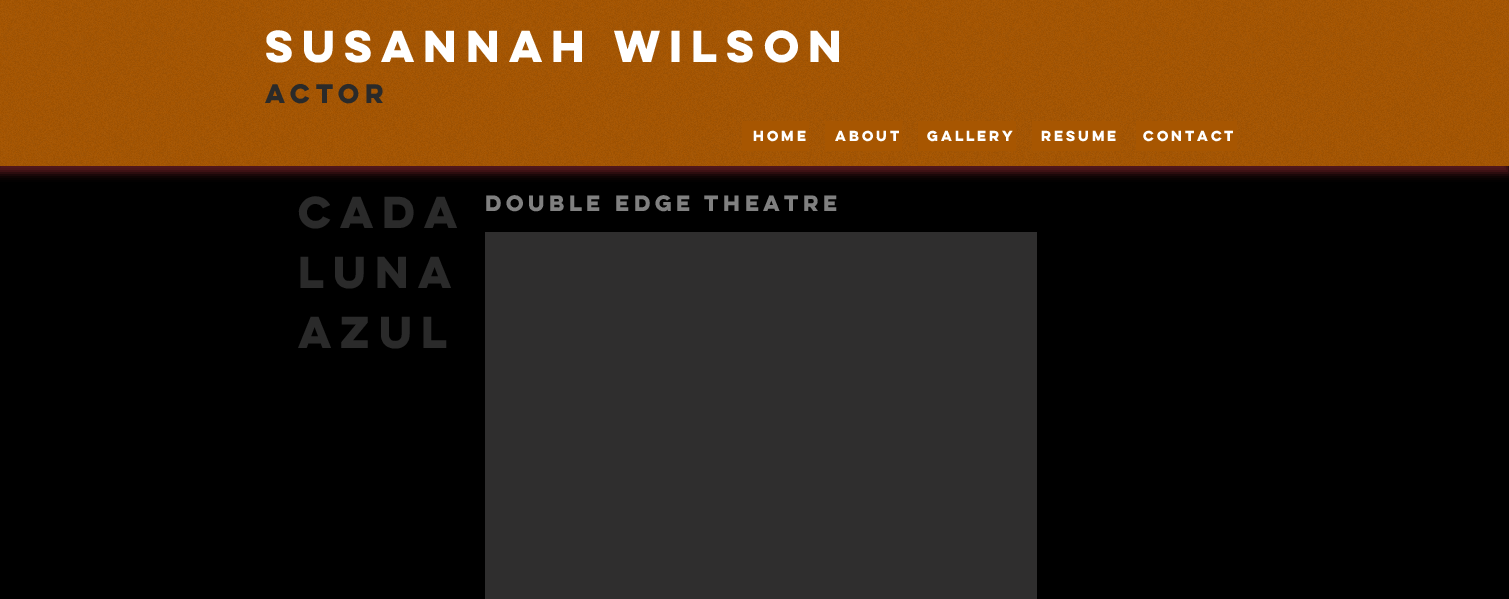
%!PS
<< /PageSize [1509 599] /PageUsesTransparency true >> setpagedevice
/co { dup -16 bitshift 255 div exch dup -8 bitshift 255 and 255 div exch 255 and 255 div setrgbcolor } def
/fn { [ exch dup neg 0 0 3 -1 roll 0 0 ] selectfont } def
/tx { co fn moveto show } def
/bx { co rectfill } def
/al { dup .setfillconstantalpha .setstrokeconstantalpha } def
/rr { 5 dict begin { /r /h /w /y /x } { exch def } forall
  x r add y moveto x w add y 2 copy h add r arct x w add y h add x 1 index r arct
  x y h add x y r arct x y 2 copy exch w add exch r arct closepath end } def
/sh { 12 dict begin { /a /b /q /h /w /y /x } { exch def } forall gsave /was 0 def
  9 -2 -9 { dup b mul 4 div /e exch def 1 sub .425 mul 2.718 exch exp 1 add a .99 .min exch div /now exch def
    1 1 now sub 1 was sub div sub al /was now def
    w h .min e 2 mul add 0 gt { x e sub y e sub w e 2 mul add h e 2 mul add
      q e add b .6 mul add w h .min 2 div e add .min 0 .max rr fill } if } for grestore end } def
/im { 5 dict begin { /h /w /y /x /name } { exch def } forall
  gsave x y translate w h scale
  w h 8 [w 0 0 h 0 0] name (r) file false 3 colorimage grestore end } def
0 .pushpdf14devicefilter
0 599 translate 1 -1 scale
4 setmiterlimit
0 0 1509 599 16#000000 bx
16#6B1E23 co
-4 3 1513 170 0 4 .81 sh
0 0 1509 166 16#A75601 bx
(media/1.raw) 0 0 1509 166 im
742 121 67 30 16#A75601 bx
825 121 77 30 16#A75601 bx
918 121 98 30 16#A75601 bx
1032 121 88 30 16#A75601 bx
1136 121 101 30 16#A75601 bx
485 232 552 367 16#2F2E2E bx
(SUSANNAH WILSON) 265 62 /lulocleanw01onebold-Bold 40 16#FFFFFF tx
(Actor) 265 103 /lulocleanw01onebold-Bold 24 16#2A2A2A tx
(Home) 753 141 /lulocleanw01onebold-Bold 13 16#FFFFFF tx
(About) 835 141 /lulocleanw01onebold-Bold 13 16#FFFFFF tx
(Gallery) 927 141 /lulocleanw01onebold-Bold 13 16#FFFFFF tx
(Resume) 1041 141 /lulocleanw01onebold-Bold 13 16#FFFFFF tx
(Contact) 1143 141 /lulocleanw01onebold-Bold 13 16#FFFFFF tx
(Cada) 298 228 /lulocleanw01onebold-Bold 40 16#2A2A2A tx
(Luna) 298 288 /lulocleanw01onebold-Bold 40 16#2A2A2A tx
(Azul) 298 348 /lulocleanw01onebold-Bold 40 16#2A2A2A tx
(Double edge Theatre) 485 211 /lulocleanw01onebold-Bold 20 16#808080 tx
.poppdf14devicefilter showpage
